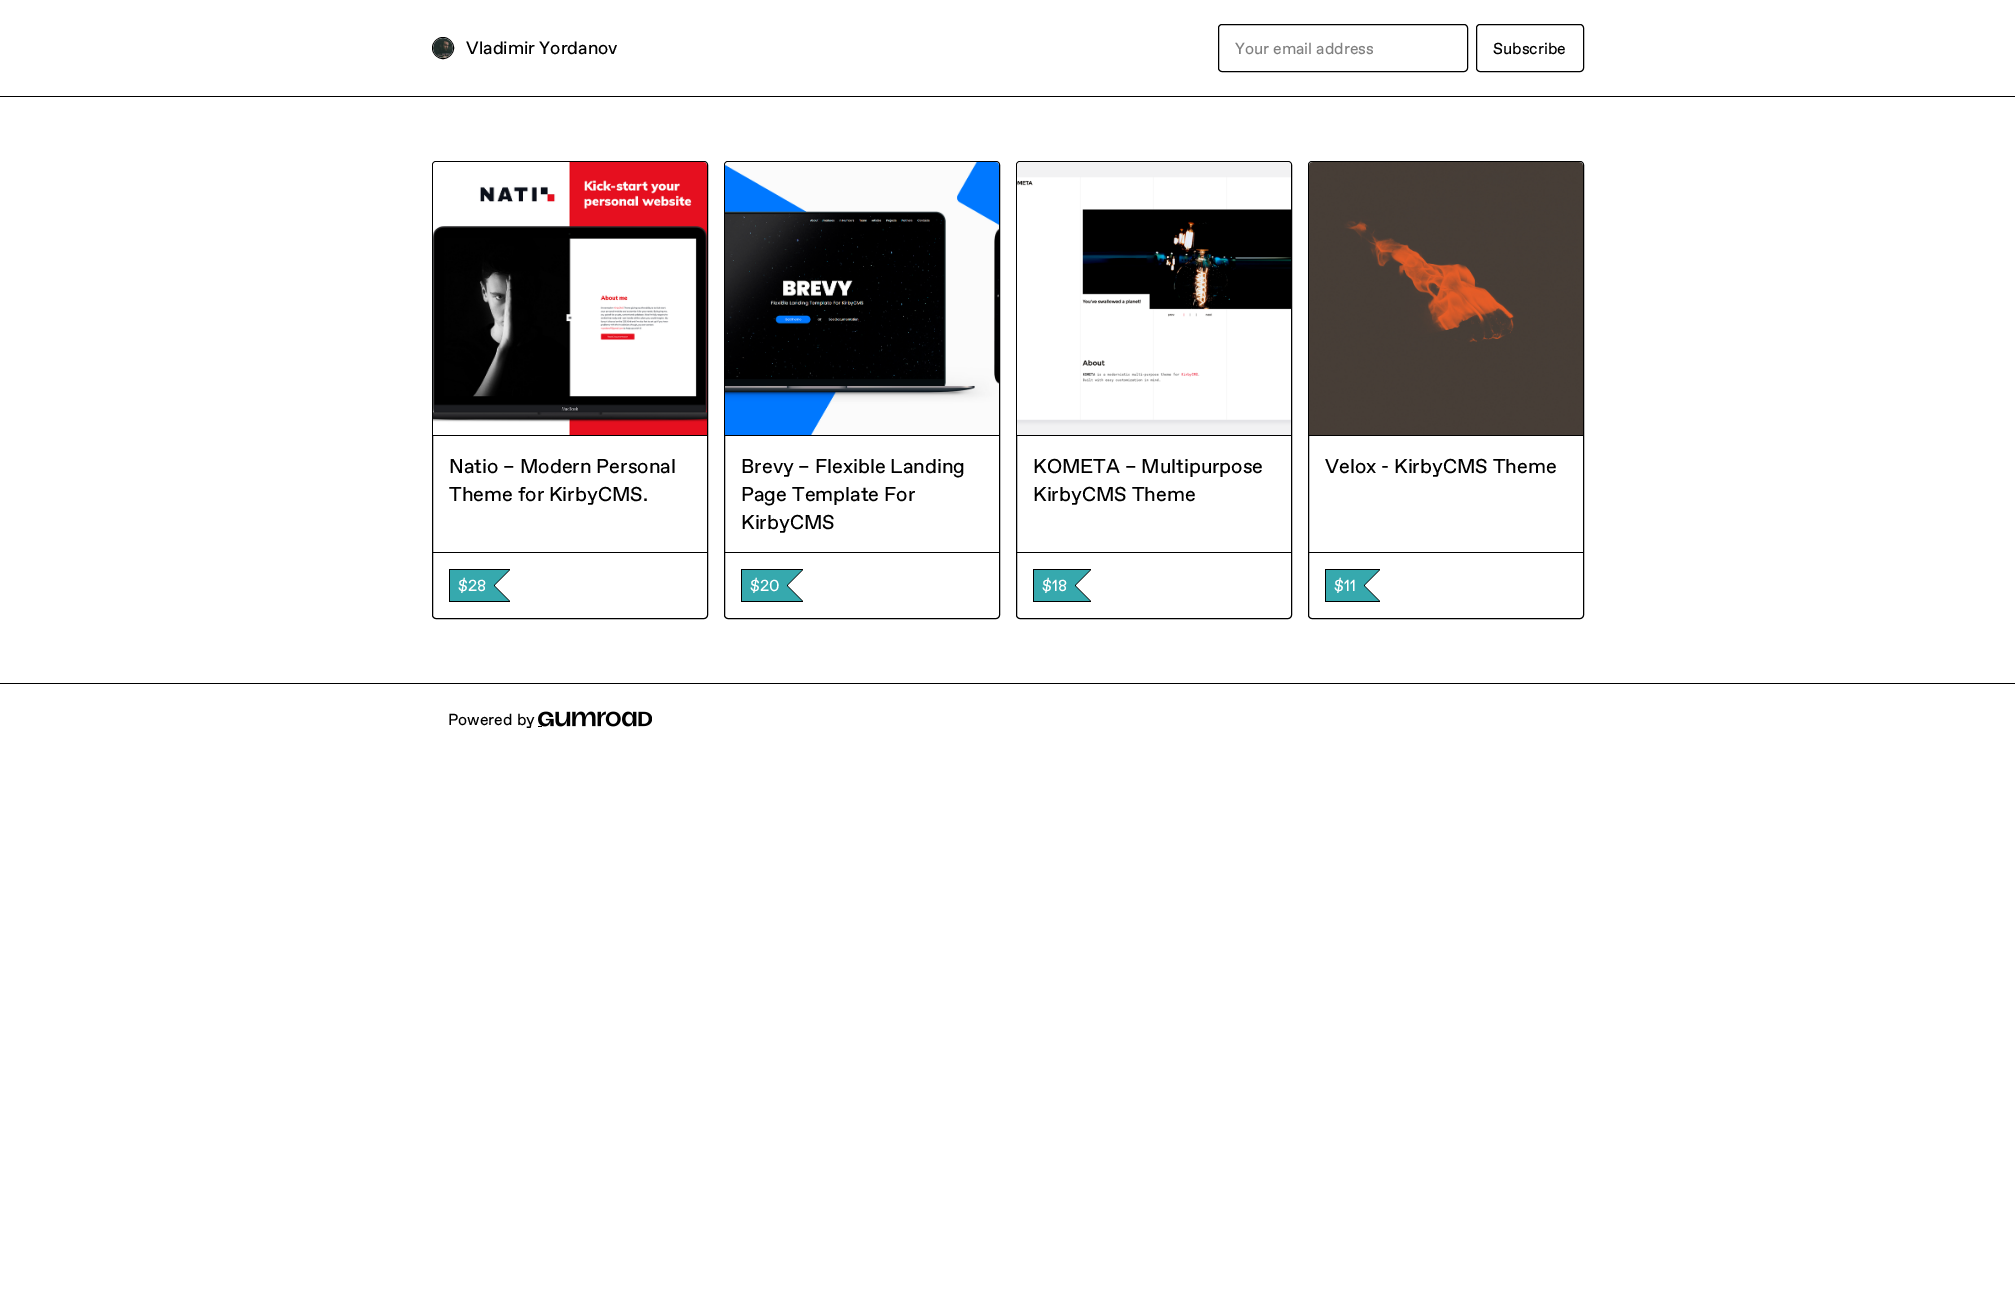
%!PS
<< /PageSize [2015 1309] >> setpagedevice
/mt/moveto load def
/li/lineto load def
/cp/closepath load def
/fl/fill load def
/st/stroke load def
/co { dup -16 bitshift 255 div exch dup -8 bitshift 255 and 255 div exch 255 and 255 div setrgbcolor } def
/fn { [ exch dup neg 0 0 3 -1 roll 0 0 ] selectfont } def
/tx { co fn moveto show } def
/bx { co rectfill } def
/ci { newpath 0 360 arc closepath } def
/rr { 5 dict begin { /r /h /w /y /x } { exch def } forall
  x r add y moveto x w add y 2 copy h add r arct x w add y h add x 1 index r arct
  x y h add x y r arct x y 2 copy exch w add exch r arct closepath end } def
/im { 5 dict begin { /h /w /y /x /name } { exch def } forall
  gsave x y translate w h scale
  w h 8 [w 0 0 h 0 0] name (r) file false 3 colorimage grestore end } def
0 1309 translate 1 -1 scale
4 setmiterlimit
0 0 2015 1309 16#FFFFFF bx
0 96 2015 1 16#000000 bx
443 48 10.5 ci st
(media/1.raw) 433 38 20 20 im
1218.5 24.5 249 47 3.5 rr st
1476.5 24.5 107 47 3.5 rr st
0 683 2015 1 16#000000 bx
432.5 161.5 275 457 3.5 rr st
433 435 274 1 16#000000 bx
(media/2.raw) 433 162 274 273 im
433 552 274 1 16#000000 bx
449 569 61 1 16#000000 bx
449 601 61 1 16#000000 bx
449 569 1 33 16#000000 bx
450 570 44 31 16#36A9AE bx
16#000000 co
494 570 mt 510 570 li 495 585 li cp 510 601 mt 494 601 li 495 586 li cp fl
494 584 1 3 16#000000 bx
16#36A9AE co
493 570 mt 509 570 li 494 585 li cp 509 601 mt 493 601 li 494 586 li cp fl
16#000000 co
724.5 161.5 275 457 3.5 rr st
725 435 274 1 16#000000 bx
(media/3.raw) 725 162 274 273 im
725 552 274 1 16#000000 bx
741 569 62 1 16#000000 bx
741 601 62 1 16#000000 bx
741 569 1 33 16#000000 bx
742 570 45 31 16#36A9AE bx
16#000000 co
787 570 mt 803 570 li 788 585 li cp 803 601 mt 787 601 li 788 586 li cp fl
787 584 1 3 16#000000 bx
16#36A9AE co
786 570 mt 802 570 li 787 585 li cp 802 601 mt 786 601 li 787 586 li cp fl
16#000000 co
1016.5 161.5 275 457 3.5 rr st
1017 435 274 1 16#000000 bx
(media/4.raw) 1017 162 274 273 im
1017 552 274 1 16#000000 bx
1033 569 58 1 16#000000 bx
1033 601 58 1 16#000000 bx
1033 569 1 33 16#000000 bx
1034 570 41 31 16#36A9AE bx
16#000000 co
1075 570 mt 1091 570 li 1076 585 li cp 1091 601 mt 1075 601 li 1076 586 li cp fl
1075 584 1 3 16#000000 bx
16#36A9AE co
1074 570 mt 1090 570 li 1075 585 li cp 1090 601 mt 1074 601 li 1075 586 li cp fl
16#000000 co
1308.5 161.5 275 457 3.5 rr st
1309 435 274 1 16#000000 bx
(media/5.raw) 1309 162 274 273 im
1309 552 274 1 16#000000 bx
1325 569 55 1 16#000000 bx
1325 601 55 1 16#000000 bx
1325 569 1 33 16#000000 bx
1326 570 38 31 16#36A9AE bx
16#000000 co
1364 570 mt 1380 570 li 1365 585 li cp 1380 601 mt 1364 601 li 1365 586 li cp fl
1364 584 1 3 16#000000 bx
16#36A9AE co
1363 570 mt 1379 570 li 1364 585 li cp 1379 601 mt 1363 601 li 1364 586 li cp fl
(media/6.raw) 538 711 114 16 im
538 726 4 1 16#000000 bx
(Vladimir Yordanov) 466 54 /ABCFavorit-Regular 18 16#000000 tx
(Your email address) 1235 54 /ABCFavorit-Regular 16 16#808080 tx
(Subscribe) 1493 54 /ABCFavorit-Regular 16 16#000000 tx
(Natio – Modern Personal) 449 473 /ABCFavorit-Regular 20 16#000000 tx
(Theme for KirbyCMS.) 449 501 /ABCFavorit-Regular 20 16#000000 tx
($28) 458 591 /ABCFavorit-Regular 16 16#FFFFFF tx
(Brevy – Flexible Landing) 741 473 /ABCFavorit-Regular 20 16#000000 tx
(Page Template For) 741 501 /ABCFavorit-Regular 20 16#000000 tx
(KirbyCMS) 741 529 /ABCFavorit-Regular 20 16#000000 tx
($20) 750 591 /ABCFavorit-Regular 16 16#FFFFFF tx
(KOMETA – Multipurpose) 1033 473 /ABCFavorit-Regular 20 16#000000 tx
(KirbyCMS Theme) 1033 501 /ABCFavorit-Regular 20 16#000000 tx
($18) 1042 591 /ABCFavorit-Regular 16 16#FFFFFF tx
(Velox - KirbyCMS Theme) 1325 473 /ABCFavorit-Regular 20 16#000000 tx
($11) 1334 591 /ABCFavorit-Regular 16 16#FFFFFF tx
(Powered by) 448 725 /ABCFavorit-Regular 16 16#000000 tx
showpage
